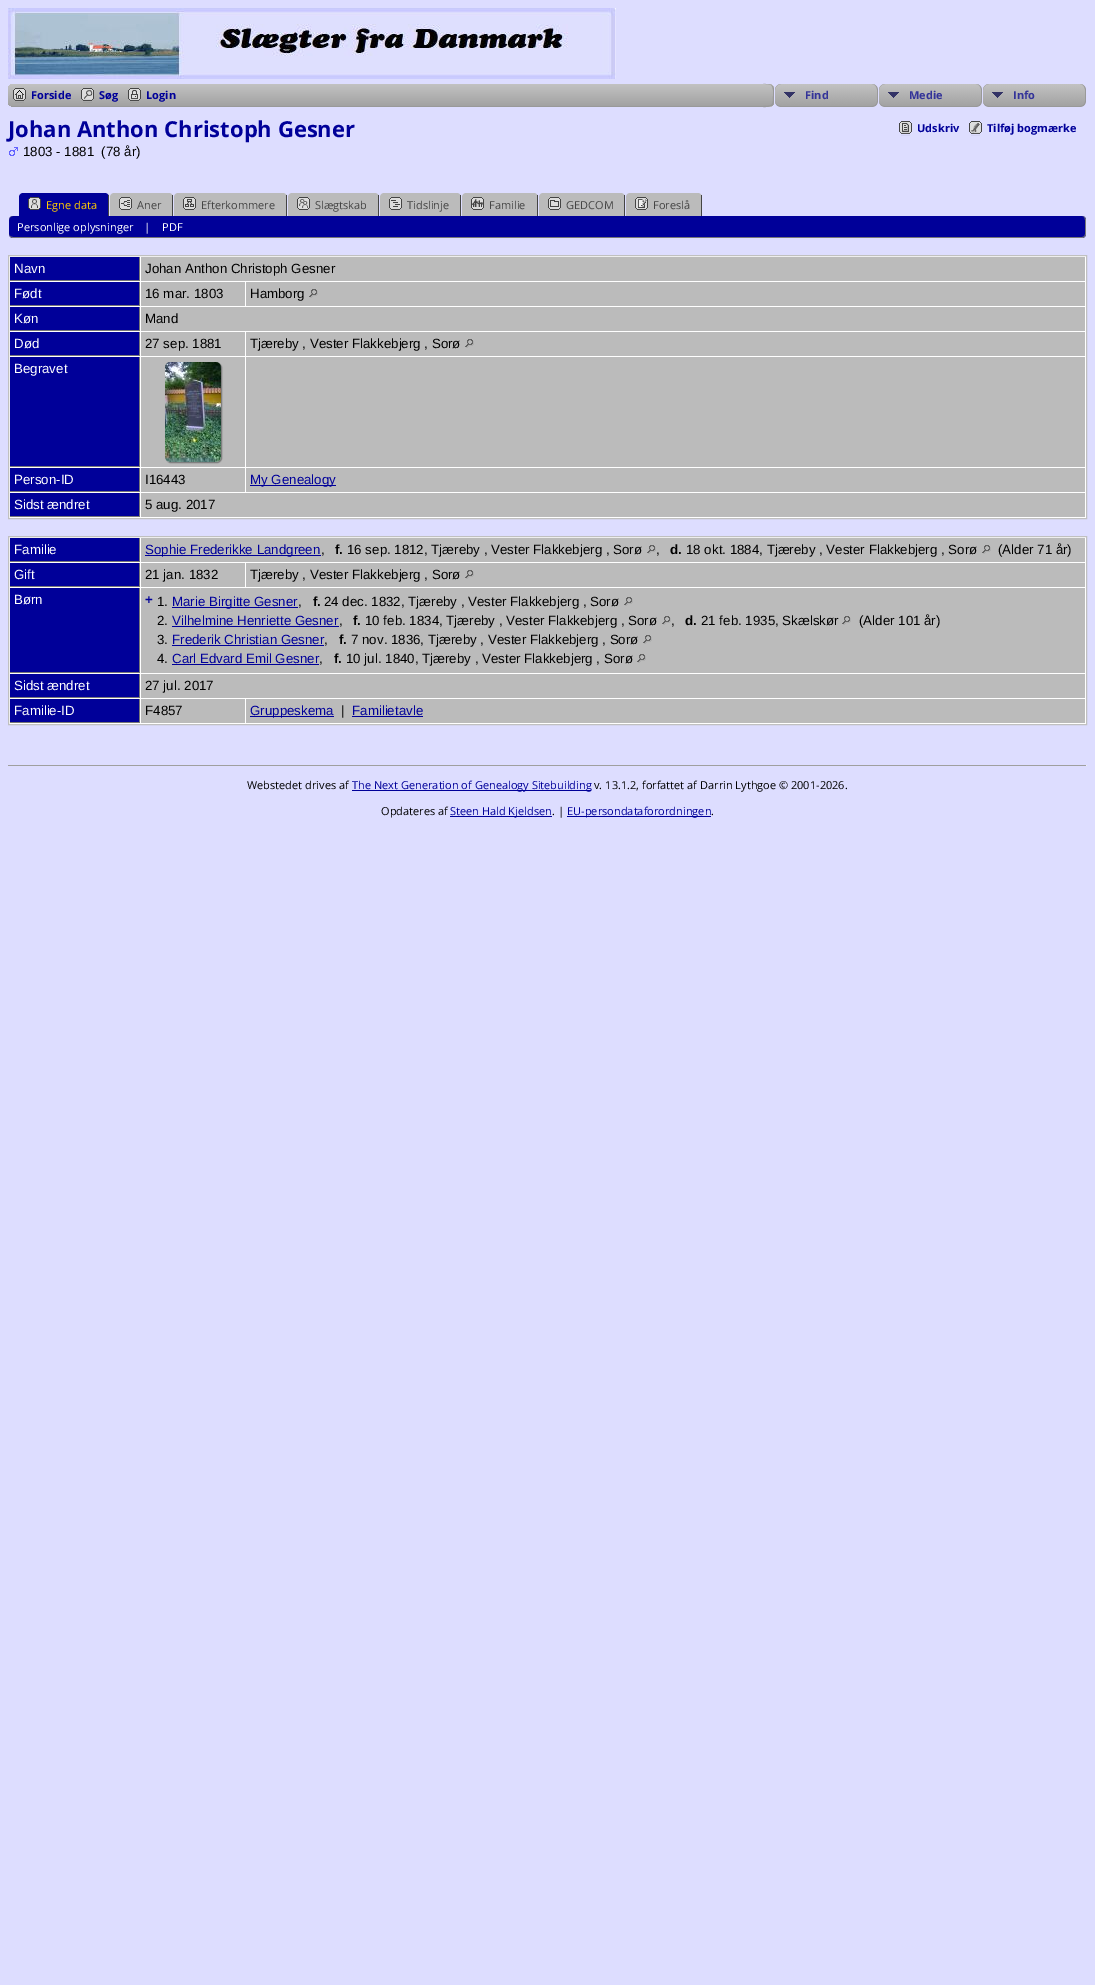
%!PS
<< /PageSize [1095 1985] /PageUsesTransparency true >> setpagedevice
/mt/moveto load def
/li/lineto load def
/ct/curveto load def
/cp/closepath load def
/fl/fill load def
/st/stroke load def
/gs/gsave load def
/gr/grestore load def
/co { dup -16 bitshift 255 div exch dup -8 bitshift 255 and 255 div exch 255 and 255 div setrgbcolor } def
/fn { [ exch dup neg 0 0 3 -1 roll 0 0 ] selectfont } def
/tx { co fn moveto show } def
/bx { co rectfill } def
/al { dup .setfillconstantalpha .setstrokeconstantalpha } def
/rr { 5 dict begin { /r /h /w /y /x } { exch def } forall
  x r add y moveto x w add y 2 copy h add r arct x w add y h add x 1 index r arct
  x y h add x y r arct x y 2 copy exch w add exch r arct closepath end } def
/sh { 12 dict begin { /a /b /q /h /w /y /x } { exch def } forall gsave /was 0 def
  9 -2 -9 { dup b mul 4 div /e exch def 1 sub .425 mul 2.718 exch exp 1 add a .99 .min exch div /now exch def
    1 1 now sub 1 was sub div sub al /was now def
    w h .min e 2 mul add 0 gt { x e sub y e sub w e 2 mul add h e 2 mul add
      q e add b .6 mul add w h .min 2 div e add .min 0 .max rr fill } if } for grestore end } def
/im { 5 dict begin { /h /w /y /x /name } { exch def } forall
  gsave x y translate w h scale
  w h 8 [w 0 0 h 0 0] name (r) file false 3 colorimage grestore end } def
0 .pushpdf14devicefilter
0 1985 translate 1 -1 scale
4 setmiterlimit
0 0 1095 1985 16#DDDDFF bx
(media/1.raw) 8 8 608 71 im
16#BBBBBB co
8 84 1079 23 6 rr fl
gs
8 84 1079 23 6 rr clip newpath
gs 14 84 mt 1081 84 li 1084.5 84 1087 86.5 1087 90 ct 1087 106 li 8 106 li 8 90 li 8 86.5 10.5 84 14 84 ct cp clip newpath
<< /ShadingType 2 /ColorSpace /DeviceRGB /Coords [548 84 548 106] /Extend [true true] /Function << /FunctionType 2 /Domain [0 1] /C0 [.761 .761 .761] /C1 [.635 .635 .635] /N 1 >> >> shfill gr
gr
11 106 752 1 16#999999 bx
(media/2.raw) 13 88 13 15 im
(media/3.raw) 81 88 13 15 im
(media/4.raw) 128 88 13 15 im
768 84 319 23 16#DDDDFF bx
gs
763 84 mt 768 84 li 771.5 84 774 86.5 774 90 ct 774 101 li 774 104.5 771.5 107 768 107 ct 763 107 li cp clip newpath
gs 763 84 mt 774 84 li 774 106 li 763 106 li cp clip newpath
<< /ShadingType 2 /ColorSpace /DeviceRGB /Coords [768 84 768 106] /Extend [true true] /Function << /FunctionType 2 /Domain [0 1] /C0 [.761 .761 .761] /C1 [.635 .635 .635] /N 1 >> >> shfill gr
gs 763 106 mt 774 106 li 774 107 li 763 107 li cp clip newpath
<< /ShadingType 2 /ColorSpace /DeviceRGB /Coords [768 106 768 128] /Extend [true true] /Function << /FunctionType 2 /Domain [0 1] /C0 [.761 .761 .761] /C1 [.635 .635 .635] /N 1 >> >> shfill gr
gr
16#999999 co
763 84 mt 767 84 773 83.5 774 89 ct 774 102 li 773 107.5 767 107 763 107 ct cp 763 84 mt 769 84 li 774 85.5 773 92 773 95.5 ct 773 105.5 772.5 106 763 106 ct cp eofill
(media/5.raw) 775 84 102 22 im
781 84 mt 872 84 li 875 84 878 87 878 90 ct 878 101 li 878 104 875 107 872 107 ct 781 107 li 778 107 775 104 775 101 ct 775 90 li 775 87 778 84 781 84 ct cp 781 84 mt 872 84 li 875 84 877 87 877 90 ct 877 101 li 877 104 875 106 872 106 ct 781 106 li 778 106 775 104 775 101 ct 775 90 li 775 87 778 84 781 84 ct cp eofill
(media/5.raw) 879 84 102 22 im
885 84 mt 976 84 li 979 84 982 87 982 90 ct 982 101 li 982 104 979 107 976 107 ct 885 107 li 882 107 879 104 879 101 ct 879 90 li 879 87 882 84 885 84 ct cp 885 84 mt 976 84 li 979 84 981 87 981 90 ct 981 101 li 981 104 979 106 976 106 ct 885 106 li 882 106 879 104 879 101 ct 879 90 li 879 87 882 84 885 84 ct cp eofill
(media/6.raw) 983 84 102 22 im
989 84 mt 1080 84 li 1083 84 1086 87 1086 90 ct 1086 101 li 1086 104 1083 107 1080 107 ct 989 107 li 986 107 983 104 983 101 ct 983 90 li 983 87 986 84 989 84 ct cp 989 84 mt 1080 84 li 1083 84 1085 87 1085 90 ct 1085 101 li 1085 104 1083 106 1080 106 ct 989 106 li 986 106 983 104 983 101 ct 983 90 li 983 87 986 84 989 84 ct cp eofill
(media/7.raw) 9 147 9 9 im
16#000099 co
23 193 mt 105 193 li 107 193 109 195 109 197 ct 109 216 li 19 216 li 19 197 li 19 195 21 193 23 193 ct cp fl
108 195 1 21 16#444444 bx
(media/8.raw) 28 197 13 13 im
16#BBBBBB co
114 193 mt 169 193 li 171 193 173 195 173 197 ct 173 216 li 110 216 li 110 197 li 110 195 112 193 114 193 ct cp fl
172 195 1 21 16#444444 bx
(media/9.raw) 119 197 13 13 im
16#BBBBBB co
178 193 mt 283 193 li 285 193 287 195 287 197 ct 287 216 li 174 216 li 174 197 li 174 195 176 193 178 193 ct cp fl
286 195 1 21 16#444444 bx
(media/10.raw) 183 197 13 13 im
16#BBBBBB co
292 193 mt 375 193 li 377 193 379 195 379 197 ct 379 216 li 288 216 li 288 197 li 288 195 290 193 292 193 ct cp fl
378 195 1 21 16#444444 bx
(media/11.raw) 297 197 13 13 im
16#BBBBBB co
384 193 mt 457 193 li 459 193 461 195 461 197 ct 461 216 li 380 216 li 380 197 li 380 195 382 193 384 193 ct cp fl
460 195 1 21 16#444444 bx
(media/12.raw) 389 197 13 13 im
16#BBBBBB co
466 193 mt 534 193 li 536 193 538 195 538 197 ct 538 216 li 462 216 li 462 197 li 462 195 464 193 466 193 ct cp fl
537 195 1 21 16#444444 bx
(media/13.raw) 471 197 13 13 im
16#BBBBBB co
543 193 mt 621 193 li 623 193 625 195 625 197 ct 625 216 li 539 216 li 539 197 li 539 195 541 193 543 193 ct cp fl
624 195 1 21 16#444444 bx
(media/14.raw) 548 197 13 13 im
16#BBBBBB co
630 193 mt 698 193 li 700 193 702 195 702 197 ct 702 216 li 626 216 li 626 197 li 626 195 628 193 630 193 ct cp fl
701 195 1 21 16#444444 bx
(media/15.raw) 635 197 13 13 im
16#000099 co
9 216 1077 22 4 rr fl
16#777777 co
13 216 mt 1082 216 li 1084 216 1086 218 1086 220 ct 1086 234 li 1086 236 1084 238 1082 238 ct 13 238 li 11 238 9 236 9 234 ct 9 220 li 9 218 11 216 13 216 ct cp 13 216 mt 1082 216 li 1084 216 1085 218 1085 220 ct 1085 234 li 1085 236 1084 237 1082 237 ct 13 237 li 11 237 9 236 9 234 ct 9 220 li 9 218 11 216 13 216 ct cp eofill
16#FFFFFF co
8.5 255.5 mt 1086.5 255.5 li 1086.5 518.5 li 8.5 518.5 li cp gs fl gr
16#C0C0C0 co
st
10 257 129 23 16#000099 bx
139 257 1 24 16#777777 bx
10 280 130 1 16#777777 bx
141 257 944 24 16#BBBBBB bx
10 282 129 23 16#000099 bx
139 282 1 24 16#777777 bx
10 305 130 1 16#777777 bx
141 282 104 24 16#BBBBBB bx
246 282 839 24 16#BBBBBB bx
(media/16.raw) 309 289 9 9 im
10 307 129 23 16#000099 bx
139 307 1 24 16#777777 bx
10 330 130 1 16#777777 bx
141 307 944 24 16#BBBBBB bx
10 332 129 23 16#000099 bx
139 332 1 24 16#777777 bx
10 355 130 1 16#777777 bx
141 332 104 24 16#BBBBBB bx
246 332 839 24 16#BBBBBB bx
(media/16.raw) 465 339 9 9 im
10 357 129 109 16#000099 bx
139 357 1 110 16#777777 bx
10 466 130 1 16#777777 bx
141 357 104 110 16#BBBBBB bx
16#777777 co
166 363 56 100 5 .5 1 sh
(media/17.raw) 165 362 56 100 im
246 357 839 110 16#BBBBBB bx
10 468 129 23 16#000099 bx
139 468 1 24 16#777777 bx
10 491 130 1 16#777777 bx
141 468 104 24 16#BBBBBB bx
246 468 839 24 16#BBBBBB bx
250 485 86 1 16#000099 bx
10 493 129 23 16#000099 bx
139 493 1 24 16#777777 bx
10 516 130 1 16#777777 bx
141 493 944 24 16#BBBBBB bx
16#FFFFFF co
8.5 536.5 mt 1086.5 536.5 li 1086.5 724.5 li 8.5 724.5 li cp gs fl gr
16#C0C0C0 co
st
10 538 129 23 16#000099 bx
139 538 1 24 16#777777 bx
10 561 130 1 16#777777 bx
141 538 944 24 16#BBBBBB bx
145 555 176 1 16#000099 bx
(media/16.raw) 647 545 9 9 im
(media/16.raw) 982 545 9 9 im
10 563 129 23 16#000099 bx
139 563 1 24 16#777777 bx
10 586 130 1 16#777777 bx
141 563 104 24 16#BBBBBB bx
246 563 839 24 16#BBBBBB bx
(media/16.raw) 465 570 9 9 im
10 588 129 84 16#000099 bx
139 588 1 85 16#777777 bx
10 672 130 1 16#777777 bx
141 588 944 85 16#BBBBBB bx
172 607 126 1 16#000099 bx
(media/16.raw) 624 597 9 9 im
172 626 167 1 16#000099 bx
(media/16.raw) 662 616 9 9 im
(media/16.raw) 842 616 9 9 im
172 645 152 1 16#000099 bx
(media/16.raw) 643 635 9 9 im
172 664 147 1 16#000099 bx
(media/16.raw) 637 654 9 9 im
10 674 129 23 16#000099 bx
139 674 1 24 16#777777 bx
10 697 130 1 16#777777 bx
141 674 944 24 16#BBBBBB bx
10 699 129 23 16#000099 bx
139 699 1 24 16#777777 bx
10 722 130 1 16#777777 bx
141 699 104 24 16#BBBBBB bx
246 699 839 24 16#BBBBBB bx
250 716 84 1 16#000099 bx
352 716 71 1 16#000099 bx
(media/18.raw) 899 121 13 15 im
(media/19.raw) 969 121 13 15 im
8 765 1079 1 16#9F9F9F bx
1086 765 1 1 16#EEEEEE bx
352 790 239 1 16#000099 bx
450 816 102 1 16#000099 bx
567 816 144 1 16#000099 bx
(Forside) 31 99 /OpenSans-Bold 11 16#000099 tx
(Søg) 99 99 /OpenSans-Bold 11 16#000099 tx
(Login) 146 99 /OpenSans-Bold 11 16#000099 tx
(Find) 805 99 /OpenSans-Bold 11 16#333399 tx
(Medie) 909 99 /OpenSans-Bold 11 16#333399 tx
(Info) 1013 99 /OpenSans-Bold 11 16#333399 tx
(Johan Anthon Christoph Gesner) 8 137 /OpenSans-Bold 22 16#000099 tx
(1803 - 1881  \(78 år\)) 23 156 /LiberationSans-Regular 13.3 16#000000 tx
(Egne data) 46 209 /OpenSans-Regular 11 16#FFCC00 tx
(Aner) 137 209 /OpenSans-Regular 11 16#444444 tx
(Efterkommere) 201 209 /OpenSans-Regular 11 16#444444 tx
(Slægtskab) 315 209 /OpenSans-Regular 11 16#444444 tx
(Tidslinje) 407 209 /OpenSans-Regular 11 16#444444 tx
(Familie) 489 209 /OpenSans-Regular 11 16#444444 tx
(GEDCOM) 566 209 /OpenSans-Regular 11 16#444444 tx
(Foreslå) 653 209 /OpenSans-Regular 11 16#444444 tx
(Personlige oplysninger) 17 231 /OpenSans-Regular 11 16#FFFFFF tx
(|) 144 231 /OpenSans-Regular 11 16#FFFFFF tx
(PDF) 162 231 /OpenSans-Regular 11 16#FFFFFF tx
(Navn) 14 273 /LiberationSans-Regular 13.3 16#FFFFFF tx
(Johan Anthon Christoph Gesner) 145 273 /LiberationSans-Regular 13.3 16#000000 tx
(Født) 14 298 /LiberationSans-Regular 13.3 16#FFFFFF tx
(16 mar. 1803) 145 298 /LiberationSans-Regular 13.3 16#000000 tx
(Hamborg) 250 298 /LiberationSans-Regular 13.3 16#000000 tx
(Køn) 14 323 /LiberationSans-Regular 13.3 16#FFFFFF tx
(Mand) 145 323 /LiberationSans-Regular 13.3 16#000000 tx
(Død) 14 348 /LiberationSans-Regular 13.3 16#FFFFFF tx
(27 sep. 1881) 145 348 /LiberationSans-Regular 13.3 16#000000 tx
(Tjæreby , Vester Flakkebjerg , Sorø) 250 348 /LiberationSans-Regular 13.3 16#000000 tx
(Begravet) 14 373 /LiberationSans-Regular 13.3 16#FFFFFF tx
(Person-ID) 14 484 /LiberationSans-Regular 13.3 16#FFFFFF tx
(I16443) 145 484 /LiberationSans-Regular 13.3 16#000000 tx
(My Genealogy) 250 484 /LiberationSans-Regular 13.3 16#000099 tx
(Sidst ændret) 14 509 /LiberationSans-Regular 13.3 16#FFFFFF tx
(5 aug. 2017) 145 509 /LiberationSans-Regular 13.3 16#000000 tx
(Familie) 14 554 /LiberationSans-Regular 13.3 16#FFFFFF tx
(Sophie Frederikke Landgreen) 145 554 /LiberationSans-Regular 13.3 16#000099 tx
(,) 321 554 /LiberationSans-Regular 13.3 16#000000 tx
(f.) 335 554 /LiberationSans-Bold 13.3 16#000000 tx
(16 sep. 1812, Tjæreby , Vester Flakkebjerg , Sorø) 347 554 /LiberationSans-Regular 13.3 16#000000 tx
(,) 656 554 /LiberationSans-Regular 13.3 16#000000 tx
(d.) 670 554 /LiberationSans-Bold 13.3 16#000000 tx
(18 okt. 1884, Tjæreby , Vester Flakkebjerg , Sorø) 686 554 /LiberationSans-Regular 13.3 16#000000 tx
(\(Alder 71 år\)) 998 554 /LiberationSans-Regular 13.3 16#000000 tx
(Gift) 14 579 /LiberationSans-Regular 13.3 16#FFFFFF tx
(21 jan. 1832) 145 579 /LiberationSans-Regular 13.3 16#000000 tx
(Tjæreby , Vester Flakkebjerg , Sorø) 250 579 /LiberationSans-Regular 13.3 16#000000 tx
(Børn) 14 604 /LiberationSans-Regular 13.3 16#FFFFFF tx
(+) 145 604 /LiberationSans-Bold 13.3 16#000099 tx
(1.) 157 606 /LiberationSans-Regular 13.3 16#000000 tx
(Marie Birgitte Gesner) 172 606 /LiberationSans-Regular 13.3 16#000099 tx
(,) 298 606 /LiberationSans-Regular 13.3 16#000000 tx
(f.) 313 606 /LiberationSans-Bold 13.3 16#000000 tx
(24 dec. 1832, Tjæreby , Vester Flakkebjerg , Sorø) 324 606 /LiberationSans-Regular 13.3 16#000000 tx
(2.) 157 625 /LiberationSans-Regular 13.3 16#000000 tx
(Vilhelmine Henriette Gesner) 172 625 /LiberationSans-Regular 13.3 16#000099 tx
(,) 339 625 /LiberationSans-Regular 13.3 16#000000 tx
(f.) 353 625 /LiberationSans-Bold 13.3 16#000000 tx
(10 feb. 1834, Tjæreby , Vester Flakkebjerg , Sorø) 365 625 /LiberationSans-Regular 13.3 16#000000 tx
(,) 671 625 /LiberationSans-Regular 13.3 16#000000 tx
(d.) 685 625 /LiberationSans-Bold 13.3 16#000000 tx
(21 feb. 1935, Skælskør) 701 625 /LiberationSans-Regular 13.3 16#000000 tx
(\(Alder 101 år\)) 859 625 /LiberationSans-Regular 13.3 16#000000 tx
(3.) 157 644 /LiberationSans-Regular 13.3 16#000000 tx
(Frederik Christian Gesner) 172 644 /LiberationSans-Regular 13.3 16#000099 tx
(,) 324 644 /LiberationSans-Regular 13.3 16#000000 tx
(f.) 339 644 /LiberationSans-Bold 13.3 16#000000 tx
(7 nov. 1836, Tjæreby , Vester Flakkebjerg , Sorø) 351 644 /LiberationSans-Regular 13.3 16#000000 tx
(4.) 157 663 /LiberationSans-Regular 13.3 16#000000 tx
(Carl Edvard Emil Gesner) 172 663 /LiberationSans-Regular 13.3 16#000099 tx
(,) 319 663 /LiberationSans-Regular 13.3 16#000000 tx
(f.) 334 663 /LiberationSans-Bold 13.3 16#000000 tx
(10 jul. 1840, Tjæreby , Vester Flakkebjerg , Sorø) 346 663 /LiberationSans-Regular 13.3 16#000000 tx
(Sidst ændret) 14 690 /LiberationSans-Regular 13.3 16#FFFFFF tx
(27 jul. 2017) 145 690 /LiberationSans-Regular 13.3 16#000000 tx
(Familie-ID) 14 715 /LiberationSans-Regular 13.3 16#FFFFFF tx
(F4857) 145 715 /LiberationSans-Regular 13.3 16#000000 tx
(Gruppeskema) 250 715 /LiberationSans-Regular 13.3 16#000099 tx
(|) 341 715 /LiberationSans-Regular 13.3 16#000000 tx
(Familietavle) 352 715 /LiberationSans-Regular 13.3 16#000099 tx
(Udskriv) 917 132 /OpenSans-Bold 11 16#000099 tx
(Tilføj bogmærke) 987 132 /OpenSans-Bold 11 16#000099 tx
(Webstedet drives af) 247 789 /OpenSans-Regular 11 16#000000 tx
(The Next Generation of Genealogy Sitebuilding) 352 789 /OpenSans-Regular 11 16#000099 tx
(v. 13.1.2, forfattet af Darrin Lythgoe © 2001-2026.) 594 789 /OpenSans-Regular 11 16#000000 tx
(Opdateres af) 381 815 /OpenSans-Regular 11 16#000000 tx
(Steen Hald Kjeldsen) 450 815 /OpenSans-Regular 11 16#000099 tx
(. |) 552 815 /OpenSans-Regular 11 16#000000 tx
(EU-persondataforordningen) 567 815 /OpenSans-Regular 11 16#000099 tx
(.) 711 815 /OpenSans-Regular 11 16#000000 tx
.poppdf14devicefilter showpage
